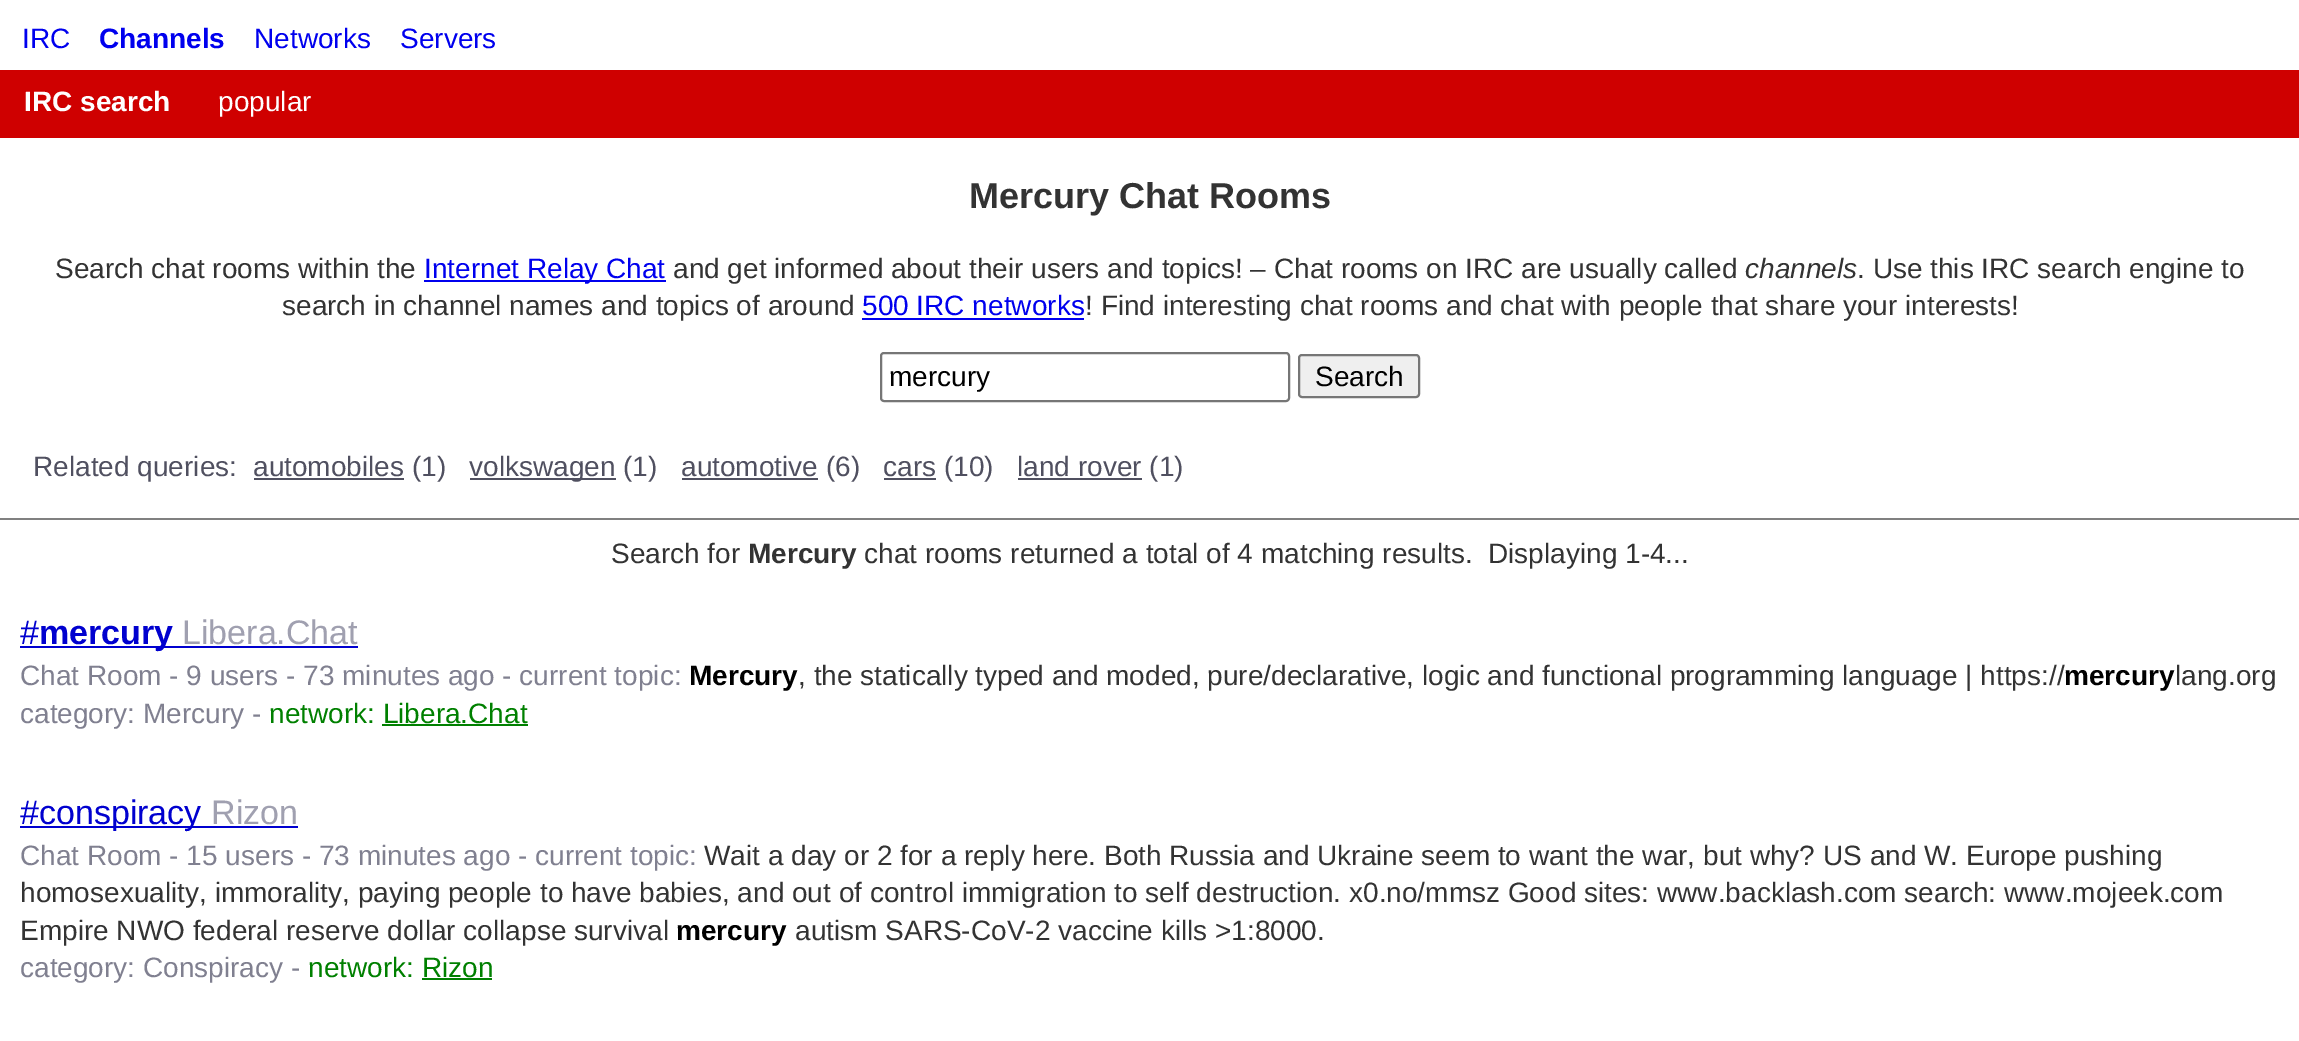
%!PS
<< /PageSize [2299 1041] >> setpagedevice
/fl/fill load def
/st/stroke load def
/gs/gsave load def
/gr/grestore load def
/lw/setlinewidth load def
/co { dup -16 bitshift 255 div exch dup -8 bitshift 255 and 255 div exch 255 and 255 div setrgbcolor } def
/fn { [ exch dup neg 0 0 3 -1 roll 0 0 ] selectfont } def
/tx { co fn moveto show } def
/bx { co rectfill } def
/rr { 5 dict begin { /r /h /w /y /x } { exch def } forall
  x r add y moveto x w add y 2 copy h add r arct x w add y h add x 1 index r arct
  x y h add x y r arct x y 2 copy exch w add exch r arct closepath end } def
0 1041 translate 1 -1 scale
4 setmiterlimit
0 0 2299 1041 16#FFFFFF bx
0 70 2299 68 16#CF0000 bx
424 280 242 2 16#0000EE bx
862 318 222 2 16#0000EE bx
16#767676 co
2 lw
881 353 408 48 3 rr st
16#EFEFEF co
1299 355 120 42 3 rr gs fl gr
16#767676 co
st
254 478 150 2 16#505060 bx
470 478 146 2 16#505060 bx
682 478 136 2 16#505060 bx
884 478 52 2 16#505060 bx
1018 478 124 2 16#505060 bx
0 518 2299 2 16#808080 bx
20 646 152 2 16#0000CF bx
172 646 186 2 16#0000CF bx
382 724 146 2 16#008000 bx
20 826 278 2 16#0000CF bx
422 978 70 2 16#008000 bx
(IRC) 22 48 /LiberationSans-Regular 28 16#0000EE tx
(Channels) 99 48 /LiberationSans-Bold 28 16#0000EE tx
(Networks) 254 48 /LiberationSans-Regular 28 16#0000EE tx
(Servers) 400 48 /LiberationSans-Regular 28 16#0000EE tx
(IRC search) 24 111 /LiberationSans-Bold 28 16#FFFFFF tx
(popular) 218 111 /LiberationSans-Regular 28 16#FFFFFF tx
(Mercury Chat Rooms) 969 208 /LiberationSans-Bold 36 16#333333 tx
(Search chat rooms within the) 55 278 /LiberationSans-Regular 28 16#333333 tx
(Internet Relay Chat) 424 278 /LiberationSans-Regular 28 16#0000EE tx
(and get informed about their users and topics! – Chat rooms on IRC are usually called) 673 278 /LiberationSans-Regular 28 16#333333 tx
(channels) 1745 278 /LiberationSans-Italic 28 16#333333 tx
(. Use this IRC search engine to) 1857 278 /LiberationSans-Regular 28 16#333333 tx
(search in channel names and topics of around) 282 315 /LiberationSans-Regular 28 16#333333 tx
(500 IRC networks) 862 315 /LiberationSans-Regular 28 16#0000EE tx
(! Find interesting chat rooms and chat with people that share your interests!) 1085 315 /LiberationSans-Regular 28 16#333333 tx
(mercury) 889 386 /LiberationSans-Regular 28 16#000000 tx
(Search) 1315 386 /LiberationSans-Regular 28 16#000000 tx
(Related queries:) 33 476 /LiberationSans-Regular 28 16#505060 tx
(automobiles \(1\)) 253 476 /LiberationSans-Regular 28 16#505060 tx
(volkswagen \(1\)) 469 476 /LiberationSans-Regular 28 16#505060 tx
(automotive \(6\)) 681 476 /LiberationSans-Regular 28 16#505060 tx
(cars \(10\)) 883 476 /LiberationSans-Regular 28 16#505060 tx
(land rover \(1\)) 1017 476 /LiberationSans-Regular 28 16#505060 tx
(Search for) 611 563 /LiberationSans-Regular 28 16#333333 tx
(Mercury) 748 563 /LiberationSans-Bold 28 16#333333 tx
(chat rooms returned a total of 4 matching results.  Displaying 1-4...) 864 563 /LiberationSans-Regular 28 16#333333 tx
(#) 20 644 /LiberationSans-Regular 34 16#0000CF tx
(mercury) 39 644 /LiberationSans-Bold 34 16#0000CF tx
(Libera.Chat) 182 644 /LiberationSans-Regular 34 16#A0A0B0 tx
(Chat Room - 9 users - 73 minutes ago - current topic:) 20 685 /LiberationSans-Regular 28 16#808090 tx
(Mercury) 689 685 /LiberationSans-Bold 28 16#000000 tx
(, the statically typed and moded, pure/declarative, logic and functional programming language | https://) 798 685 /LiberationSans-Regular 28 16#333333 tx
(mercury) 2064 685 /LiberationSans-Bold 28 16#000000 tx
(lang.org) 2175 685 /LiberationSans-Regular 28 16#333333 tx
(category: Mercury -) 20 723 /LiberationSans-Regular 28 16#808090 tx
(network: Libera.Chat) 269 723 /LiberationSans-Regular 28 16#008000 tx
(#conspiracy) 20 824 /LiberationSans-Regular 34 16#0000CF tx
(Rizon) 211 824 /LiberationSans-Regular 34 16#A0A0B0 tx
(Chat Room - 15 users - 73 minutes ago - current topic:) 20 865 /LiberationSans-Regular 28 16#808090 tx
(Wait a day or 2 for a reply here. Both Russia and Ukraine seem to want the war, but why? US and W. Europe pushing) 704 865 /LiberationSans-Regular 28 16#333333 tx
(homosexuality, immorality, paying people to have babies, and out of control immigration to self destruction. x0.no/mmsz Good sites: www.backlash.com search: www.mojeek.com) 20 902 /LiberationSans-Regular 28 16#333333 tx
(Empire NWO federal reserve dollar collapse survival) 20 940 /LiberationSans-Regular 28 16#333333 tx
(mercury) 676 940 /LiberationSans-Bold 28 16#000000 tx
(autism SARS-CoV-2 vaccine kills >1:8000.) 795 940 /LiberationSans-Regular 28 16#333333 tx
(category: Conspiracy -) 20 977 /LiberationSans-Regular 28 16#808090 tx
(network: Rizon) 308 977 /LiberationSans-Regular 28 16#008000 tx
showpage
